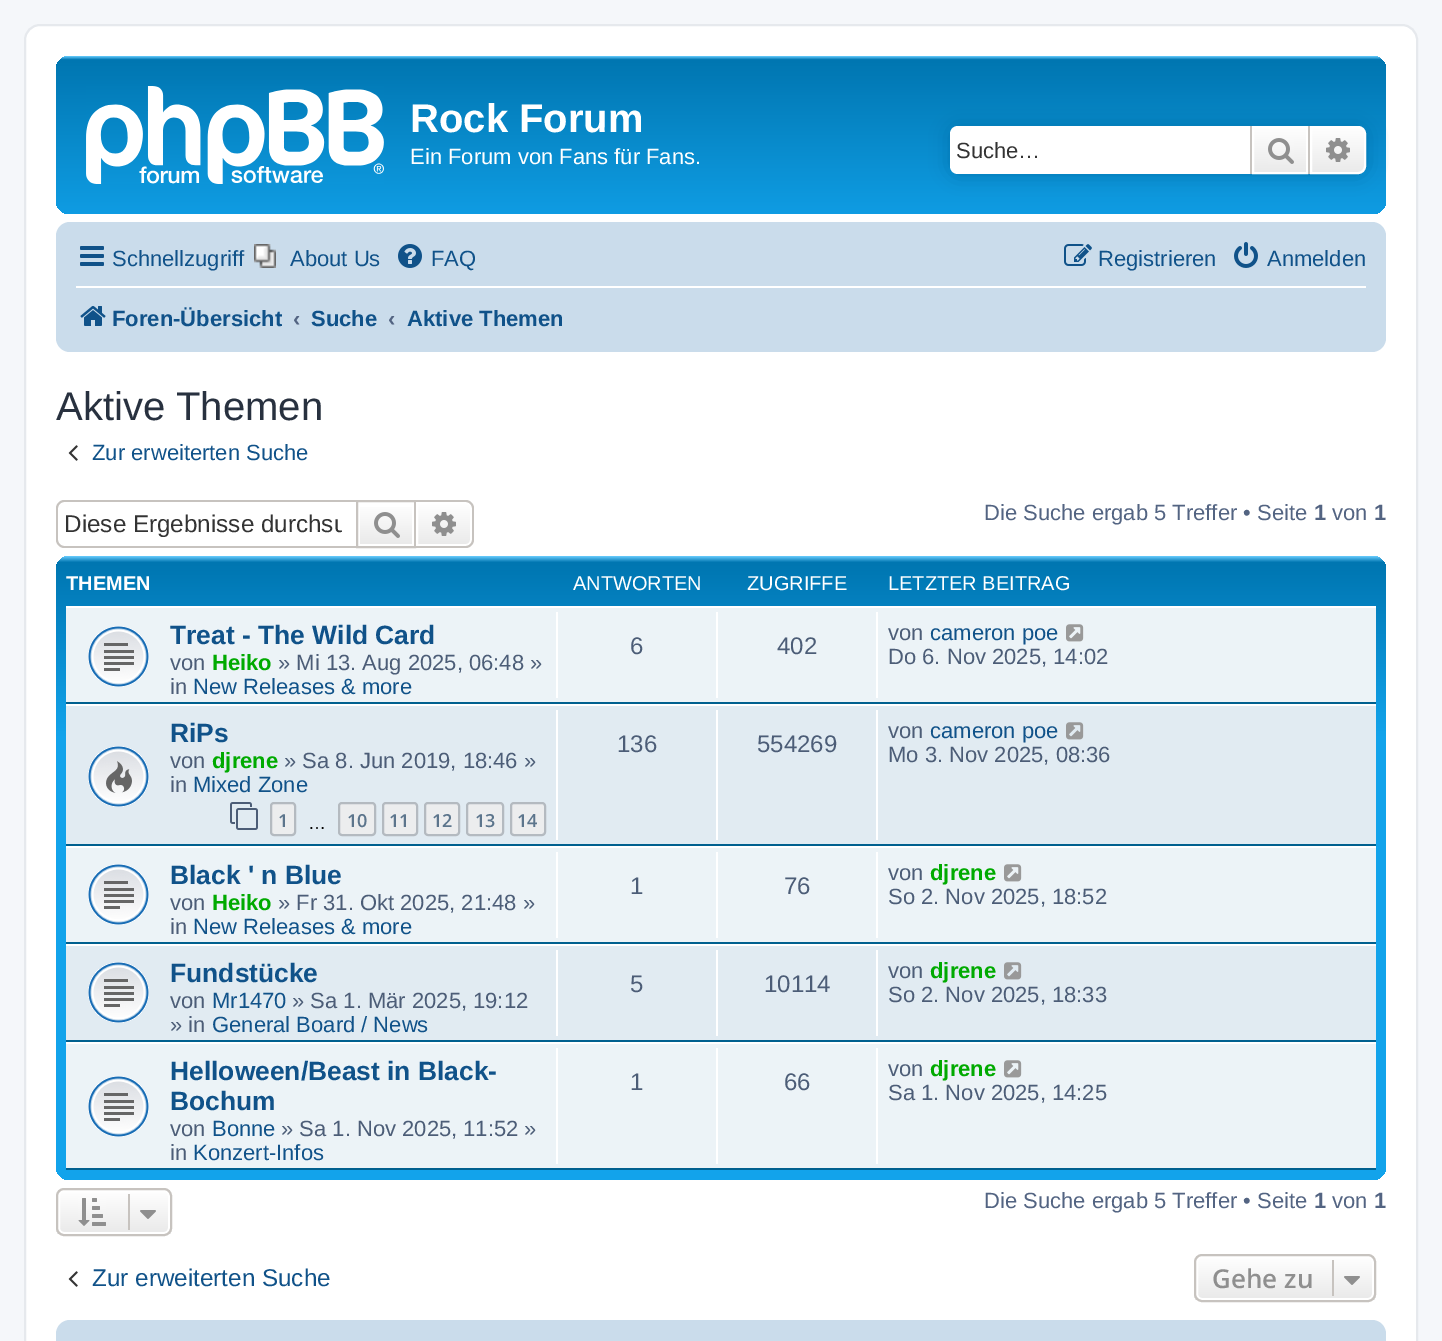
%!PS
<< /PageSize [1442 1341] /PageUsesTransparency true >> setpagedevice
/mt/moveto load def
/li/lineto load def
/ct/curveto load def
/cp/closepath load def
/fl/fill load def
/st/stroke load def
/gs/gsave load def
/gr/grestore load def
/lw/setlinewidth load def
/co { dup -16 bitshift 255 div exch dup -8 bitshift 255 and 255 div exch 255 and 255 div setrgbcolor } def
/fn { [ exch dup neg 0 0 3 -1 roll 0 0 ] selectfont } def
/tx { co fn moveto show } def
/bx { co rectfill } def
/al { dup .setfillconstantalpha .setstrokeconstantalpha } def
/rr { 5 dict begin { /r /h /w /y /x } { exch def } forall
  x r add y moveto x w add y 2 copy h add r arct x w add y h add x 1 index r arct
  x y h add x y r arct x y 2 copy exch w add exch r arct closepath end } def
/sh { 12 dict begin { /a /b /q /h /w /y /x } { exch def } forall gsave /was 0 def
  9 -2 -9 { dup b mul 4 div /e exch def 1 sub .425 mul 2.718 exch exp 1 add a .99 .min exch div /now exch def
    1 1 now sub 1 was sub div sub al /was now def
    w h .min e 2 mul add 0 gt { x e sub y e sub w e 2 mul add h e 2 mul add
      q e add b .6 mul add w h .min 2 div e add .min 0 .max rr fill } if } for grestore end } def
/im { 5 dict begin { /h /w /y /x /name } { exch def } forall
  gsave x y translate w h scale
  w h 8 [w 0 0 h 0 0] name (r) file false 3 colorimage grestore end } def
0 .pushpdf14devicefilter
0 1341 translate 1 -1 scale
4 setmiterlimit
0 0 1442 1341 16#F5F7FA bx
16#FFFFFF co
25 25 1392 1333 15 rr gs fl gr
16#E6E9ED co
2 lw
st
gs 56 56 1330 158 14 rr clip newpath
<< /ShadingType 2 /ColorSpace /DeviceRGB /Coords [721 56 721 240] /Extend [true true] /Function << /FunctionType 3 /Domain [0 1] /Functions [<< /FunctionType 2 /Domain [0 1] /C0 [.416 .808 1] /C1 [0 .463 .694] /N 1 >> << /FunctionType 2 /Domain [0 1] /C0 [0 .463 .694] /C1 [.071 .639 .922] /N 1 >>] /Bounds [.02] /Encode [0 1 0 1] >> >> shfill gr
(media/1.raw) 86 86 298 98 im
16#0075B0 co
950 126 416 48 8 10 1 sh
16#FFFFFF co
958 126 mt 1250 126 li 1250 174 li 958 174 li 953.5 174 950 170.5 950 166 ct 950 134 li 950 129.5 953.5 126 958 126 ct cp fl
gs 1254 128 mt 1306 128 li 1306 172 li 1254 172 li cp clip newpath
<< /ShadingType 2 /ColorSpace /DeviceRGB /Coords [1280 126 1280 174] /Extend [true true] /Function << /FunctionType 2 /Domain [0 1] /C0 [1 1 1] /C1 [.914 .914 .914] /N 1 >> >> shfill gr
1253 127 54 46 rectstroke
1308 126 2 48 16#C7C3BF bx
1250 126 2 48 16#C7C3BF bx
(media/2.raw) 1268 138 26 26 im
gs 1311 127 mt 1358 127 li 1362 127 1365 130 1365 134 ct 1365 166 li 1365 170 1362 173 1358 173 ct 1311 173 li cp clip newpath
<< /ShadingType 2 /ColorSpace /DeviceRGB /Coords [1338 126 1338 174] /Extend [true true] /Function << /FunctionType 2 /Domain [0 1] /C0 [1 1 1] /C1 [.914 .914 .914] /N 1 >> >> shfill gr
16#FFFFFF co
1311 127 mt 1358 127 li 1362 127 1365 130 1365 134 ct 1365 166 li 1365 170 1362 173 1358 173 ct 1311 173 li cp st
(media/3.raw) 1326 138 24 24 im
16#CADCEB co
56 222 1330 130 14 rr fl
(media/4.raw) 80 246 24 20 im
(media/5.raw) 254 244 22 24 im
(media/6.raw) 398 244 24 24 im
(media/7.raw) 1064 244 28 22 im
(media/8.raw) 1234 242 24 26 im
76 286 1290 2 16#FFFFFF bx
(media/9.raw) 80 306 26 20 im
(media/10.raw) 68 445 10 16 im
16#C7C3BF co
64 500 mt 356 500 li 356 548 li 64 548 li 60 548 56 544 56 540 ct 56 508 li 56 504 60 500 64 500 ct cp 64 502 mt 356 502 li 356 546 li 64 546 li 61 546 58 543 58 540 ct 58 508 li 58 505 61 502 64 502 ct cp eofill
gs 360 507 mt 412 507 li 412 544 li 360 544 li cp clip newpath
<< /ShadingType 2 /ColorSpace /DeviceRGB /Coords [386 502 386 546] /Extend [true true] /Function << /FunctionType 2 /Domain [0 1] /C0 [1 1 1] /C1 [.914 .914 .914] /N 1 >> >> shfill gr
357 501 58 46 rectstroke
(media/11.raw) 374 512 26 26 im
gs 417 503 mt 466 503 li 469 503 471 505 471 508 ct 471 540 li 471 543 469 545 466 545 ct 417 545 li cp clip newpath
<< /ShadingType 2 /ColorSpace /DeviceRGB /Coords [444 502 444 546] /Extend [true true] /Function << /FunctionType 2 /Domain [0 1] /C0 [1 1 1] /C1 [.914 .914 .914] /N 1 >> >> shfill gr
16#FFFFFF co
417 503 mt 466 503 li 469 503 471 505 471 508 ct 471 540 li 471 543 469 545 466 545 ct 417 545 li cp st
16#C7C3BF co
416 500 mt 466 500 li 470 500 474 504 474 508 ct 474 540 li 474 544 470 548 466 548 ct 416 548 li cp 416 502 mt 466 502 li 469 502 472 505 472 508 ct 472 540 li 472 543 469 546 466 546 ct 416 546 li cp eofill
(media/12.raw) 432 512 24 24 im
gs 56 556 1330 624 14 rr clip newpath
<< /ShadingType 2 /ColorSpace /DeviceRGB /Coords [721 556 721 1180] /Extend [true true] /Function << /FunctionType 3 /Domain [0 1] /Functions [<< /FunctionType 2 /Domain [0 1] /C0 [.416 .808 1] /C1 [0 .463 .694] /N 1 >> << /FunctionType 2 /Domain [0 1] /C0 [0 .463 .694] /C1 [.071 .639 .922] /N 1 >> << /FunctionType 2 /Domain [0 1] /C0 [.071 .639 .922] /C1 [.071 .639 .922] /N 1 >>] /Bounds [.01 .29] /Encode [0 1 0 1 0 1] >> >> shfill gr
66 608 1310 94 16#ECF3F7 bx
66 606 1310 2 16#FFFFFF bx
66 702 1310 2 16#00608F bx
(media/13.raw) 88 626 61 61 im
556 612 2 86 16#FFFFFF bx
716 612 2 86 16#FFFFFF bx
876 612 2 86 16#FFFFFF bx
(media/14.raw) 1066 624 18 18 im
66 706 1310 138 16#E1EBF2 bx
66 704 1310 2 16#FFFFFF bx
66 844 1310 2 16#00608F bx
(media/15.raw) 88 746 61 61 im
(media/16.raw) 230 802 28 28 im
16#ECEDEE co
271 803 24 32 3 rr gs fl gr
16#B4BAC0 co
st
16#ECEDEE co
339 803 36 32 3 rr gs fl gr
16#B4BAC0 co
st
16#ECEDEE co
383 803 34 32 3 rr gs fl gr
16#B4BAC0 co
st
16#ECEDEE co
425 803 34 32 3 rr gs fl gr
16#B4BAC0 co
st
16#ECEDEE co
467 803 36 32 3 rr gs fl gr
16#B4BAC0 co
st
16#ECEDEE co
511 803 34 32 3 rr gs fl gr
16#B4BAC0 co
st
556 710 2 130 16#FFFFFF bx
716 710 2 130 16#FFFFFF bx
876 710 2 130 16#FFFFFF bx
(media/17.raw) 1066 722 18 18 im
66 848 1310 94 16#ECF3F7 bx
66 846 1310 2 16#FFFFFF bx
66 942 1310 2 16#00608F bx
(media/13.raw) 88 864 61 61 im
556 852 2 86 16#FFFFFF bx
716 852 2 86 16#FFFFFF bx
876 852 2 86 16#FFFFFF bx
(media/14.raw) 1004 864 18 18 im
66 946 1310 94 16#E1EBF2 bx
66 944 1310 2 16#FFFFFF bx
66 1040 1310 2 16#00608F bx
(media/18.raw) 88 962 61 61 im
556 950 2 86 16#FFFFFF bx
716 950 2 86 16#FFFFFF bx
876 950 2 86 16#FFFFFF bx
(media/17.raw) 1004 962 18 18 im
66 1044 1310 124 16#ECF3F7 bx
66 1042 1310 2 16#FFFFFF bx
66 1168 1310 2 16#00608F bx
(media/13.raw) 88 1076 61 61 im
556 1048 2 116 16#FFFFFF bx
716 1048 2 116 16#FFFFFF bx
876 1048 2 116 16#FFFFFF bx
(media/14.raw) 1004 1060 18 18 im
gs
56 1188 116 48 8 rr clip newpath
gs 56 1190 mt 172 1190 li 172 1234 li 56 1234 li cp clip newpath
<< /ShadingType 2 /ColorSpace /DeviceRGB /Coords [114 1190 114 1234] /Extend [true true] /Function << /FunctionType 2 /Domain [0 1] /C0 [1 1 1] /C1 [.914 .914 .914] /N 1 >> >> shfill gr
gr
59 1191 110 42 5 rr st
16#C7C3BF co
57 1189 114 46 7 rr st
(media/19.raw) 78 1198 28 28 im
128 1194 2 36 16#C7C3BF bx
(media/20.raw) 140 1210 16 9 im
(media/10.raw) 68 1271 10 16 im
gs
1194 1254 182 48 8 rr clip newpath
gs 1194 1256 mt 1376 1256 li 1376 1300 li 1194 1300 li cp clip newpath
<< /ShadingType 2 /ColorSpace /DeviceRGB /Coords [1285 1256 1285 1300] /Extend [true true] /Function << /FunctionType 2 /Domain [0 1] /C0 [1 1 1] /C1 [.914 .914 .914] /N 1 >> >> shfill gr
gr
16#FFFFFF co
1197 1257 176 42 5 rr st
16#C7C3BF co
1195 1255 180 46 7 rr st
1332 1260 2 36 16#C7C3BF bx
(media/20.raw) 1344 1276 16 9 im
16#CADCEB co
56 1320 1330 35 14 rr fl
(Rock Forum) 410 132 /LiberationSans-Bold 40 16#FFFFFF tx
(Ein Forum von Fans für Fans.) 410 164 /LiberationSans-Regular 22 16#FFFFFF tx
(Suche…) 956 158 /LiberationSans-Regular 22 16#333333 tx
(Schnellzugriff) 112 266 /LiberationSans-Regular 22 16#105289 tx
(About Us) 290 266 /LiberationSans-Regular 22 16#105289 tx
(FAQ) 431 266 /LiberationSans-Regular 22 16#105289 tx
(Registrieren) 1098 266 /LiberationSans-Regular 22 16#105289 tx
(Anmelden) 1267 266 /LiberationSans-Regular 22 16#105289 tx
(Foren-Übersicht) 112 326 /LiberationSans-Bold 22 16#105289 tx
(‹) 293 326 /LiberationSans-Bold 22 16#536482 tx
(Suche) 311 326 /LiberationSans-Bold 22 16#105289 tx
(‹) 388 326 /LiberationSans-Bold 22 16#536482 tx
(Aktive Themen) 407 326 /LiberationSans-Bold 22 16#105289 tx
(Aktive Themen) 56 420 /LiberationSans-Regular 40 16#28313F tx
(Zur erweiterten Suche) 92 460 /LiberationSans-Regular 22 16#105289 tx
gs
64 510 278 28 rectclip
(Diese Ergebnisse durchsu) 64 532 /LiberationSans-Regular 24.25 16#333333 tx
gr
(Die Suche ergab 5 Treffer • Seite) 984 520 /LiberationSans-Regular 22 16#536482 tx
(1) 1314 520 /LiberationSans-Bold 22 16#536482 tx
(von) 1332 520 /LiberationSans-Regular 22 16#536482 tx
(1) 1374 520 /LiberationSans-Bold 22 16#536482 tx
(THEMEN) 66 590 /LiberationSans-Bold 20 16#FFFFFF tx
(ANTWORTEN) 573 590 /LiberationSans-Regular 20 16#FFFFFF tx
(ZUGRIFFE) 747 590 /LiberationSans-Regular 20 16#FFFFFF tx
(LETZTER BEITRAG) 888 590 /LiberationSans-Regular 20 16#FFFFFF tx
(Treat - The Wild Card) 170 644 /LiberationSans-Bold 26.4 16#105289 tx
(von) 170 670 /LiberationSans-Regular 22 16#4C5D77 tx
(Heiko) 212 670 /LiberationSans-Bold 22 16#00AA00 tx
(» Mi 13. Aug 2025, 06:48 ») 278 670 /LiberationSans-Regular 22 16#4C5D77 tx
(in) 170 694 /LiberationSans-Regular 22 16#4C5D77 tx
(New Releases & more) 193 694 /LiberationSans-Regular 22 16#105289 tx
(6) 630 654 /LiberationSans-Regular 24 16#4C5D77 tx
(402) 777 654 /LiberationSans-Regular 24 16#4C5D77 tx
(von) 888 640 /LiberationSans-Regular 22 16#4C5D77 tx
(cameron poe) 930 640 /LiberationSans-Regular 22 16#105289 tx
(Do 6. Nov 2025, 14:02) 888 664 /LiberationSans-Regular 22 16#4C5D77 tx
(RiPs) 170 742 /LiberationSans-Bold 26.4 16#105289 tx
(von) 170 768 /LiberationSans-Regular 22 16#4C5D77 tx
(djrene) 212 768 /LiberationSans-Bold 22 16#00AA00 tx
(» Sa 8. Jun 2019, 18:46 ») 284 768 /LiberationSans-Regular 22 16#4C5D77 tx
(in) 170 792 /LiberationSans-Regular 22 16#4C5D77 tx
(Mixed Zone) 193 792 /LiberationSans-Regular 22 16#105289 tx
(1) 278 827 /OpenSans-SemiBold 18 16#5C758C tx
(10) 347 827 /OpenSans-SemiBold 18 16#5C758C tx
(11) 389 827 /OpenSans-SemiBold 18 16#5C758C tx
(12) 432 827 /OpenSans-SemiBold 18 16#5C758C tx
(13) 475 827 /OpenSans-SemiBold 18 16#5C758C tx
(14) 517 827 /OpenSans-SemiBold 18 16#5C758C tx
(…) 308 829 /LiberationSans-Regular 18 16#000000 tx
(136) 617 752 /LiberationSans-Regular 24 16#4C5D77 tx
(554269) 757 752 /LiberationSans-Regular 24 16#4C5D77 tx
(von) 888 738 /LiberationSans-Regular 22 16#4C5D77 tx
(cameron poe) 930 738 /LiberationSans-Regular 22 16#105289 tx
(Mo 3. Nov 2025, 08:36) 888 762 /LiberationSans-Regular 22 16#4C5D77 tx
(Black ' n Blue) 170 884 /LiberationSans-Bold 26.4 16#105289 tx
(von) 170 910 /LiberationSans-Regular 22 16#4C5D77 tx
(Heiko) 212 910 /LiberationSans-Bold 22 16#00AA00 tx
(» Fr 31. Okt 2025, 21:48 ») 278 910 /LiberationSans-Regular 22 16#4C5D77 tx
(in) 170 934 /LiberationSans-Regular 22 16#4C5D77 tx
(New Releases & more) 193 934 /LiberationSans-Regular 22 16#105289 tx
(1) 630 894 /LiberationSans-Regular 24 16#4C5D77 tx
(76) 784 894 /LiberationSans-Regular 24 16#4C5D77 tx
(von) 888 880 /LiberationSans-Regular 22 16#4C5D77 tx
(djrene) 930 880 /LiberationSans-Bold 22 16#00AA00 tx
(So 2. Nov 2025, 18:52) 888 904 /LiberationSans-Regular 22 16#4C5D77 tx
(Fundstücke) 170 982 /LiberationSans-Bold 26.4 16#105289 tx
(von) 170 1008 /LiberationSans-Regular 22 16#4C5D77 tx
(Mr1470) 212 1008 /LiberationSans-Regular 22 16#105289 tx
(» Sa 1. Mär 2025, 19:12) 292 1008 /LiberationSans-Regular 22 16#4C5D77 tx
(» in) 170 1032 /LiberationSans-Regular 22 16#4C5D77 tx
(General Board / News) 212 1032 /LiberationSans-Regular 22 16#105289 tx
(5) 630 992 /LiberationSans-Regular 24 16#4C5D77 tx
(10114) 764 992 /LiberationSans-Regular 24 16#4C5D77 tx
(von) 888 978 /LiberationSans-Regular 22 16#4C5D77 tx
(djrene) 930 978 /LiberationSans-Bold 22 16#00AA00 tx
(So 2. Nov 2025, 18:33) 888 1002 /LiberationSans-Regular 22 16#4C5D77 tx
(Helloween/Beast in Black-) 170 1080 /LiberationSans-Bold 26.4 16#105289 tx
(Bochum) 170 1110 /LiberationSans-Bold 26.4 16#105289 tx
(von) 170 1136 /LiberationSans-Regular 22 16#4C5D77 tx
(Bonne) 212 1136 /LiberationSans-Regular 22 16#105289 tx
(» Sa 1. Nov 2025, 11:52 ») 281 1136 /LiberationSans-Regular 22 16#4C5D77 tx
(in) 170 1160 /LiberationSans-Regular 22 16#4C5D77 tx
(Konzert-Infos) 193 1160 /LiberationSans-Regular 22 16#105289 tx
(1) 630 1090 /LiberationSans-Regular 24 16#4C5D77 tx
(66) 784 1090 /LiberationSans-Regular 24 16#4C5D77 tx
(von) 888 1076 /LiberationSans-Regular 22 16#4C5D77 tx
(djrene) 930 1076 /LiberationSans-Bold 22 16#00AA00 tx
(Sa 1. Nov 2025, 14:25) 888 1100 /LiberationSans-Regular 22 16#4C5D77 tx
(Die Suche ergab 5 Treffer • Seite) 984 1208 /LiberationSans-Regular 22 16#536482 tx
(1) 1314 1208 /LiberationSans-Bold 22 16#536482 tx
(von) 1332 1208 /LiberationSans-Regular 22 16#536482 tx
(1) 1374 1208 /LiberationSans-Bold 22 16#536482 tx
(Zur erweiterten Suche) 92 1286 /LiberationSans-Regular 24.25 16#105289 tx
(Gehe zu) 1212 1288 /OpenSans-SemiBold 26 16#8F8F8F tx
.poppdf14devicefilter showpage
